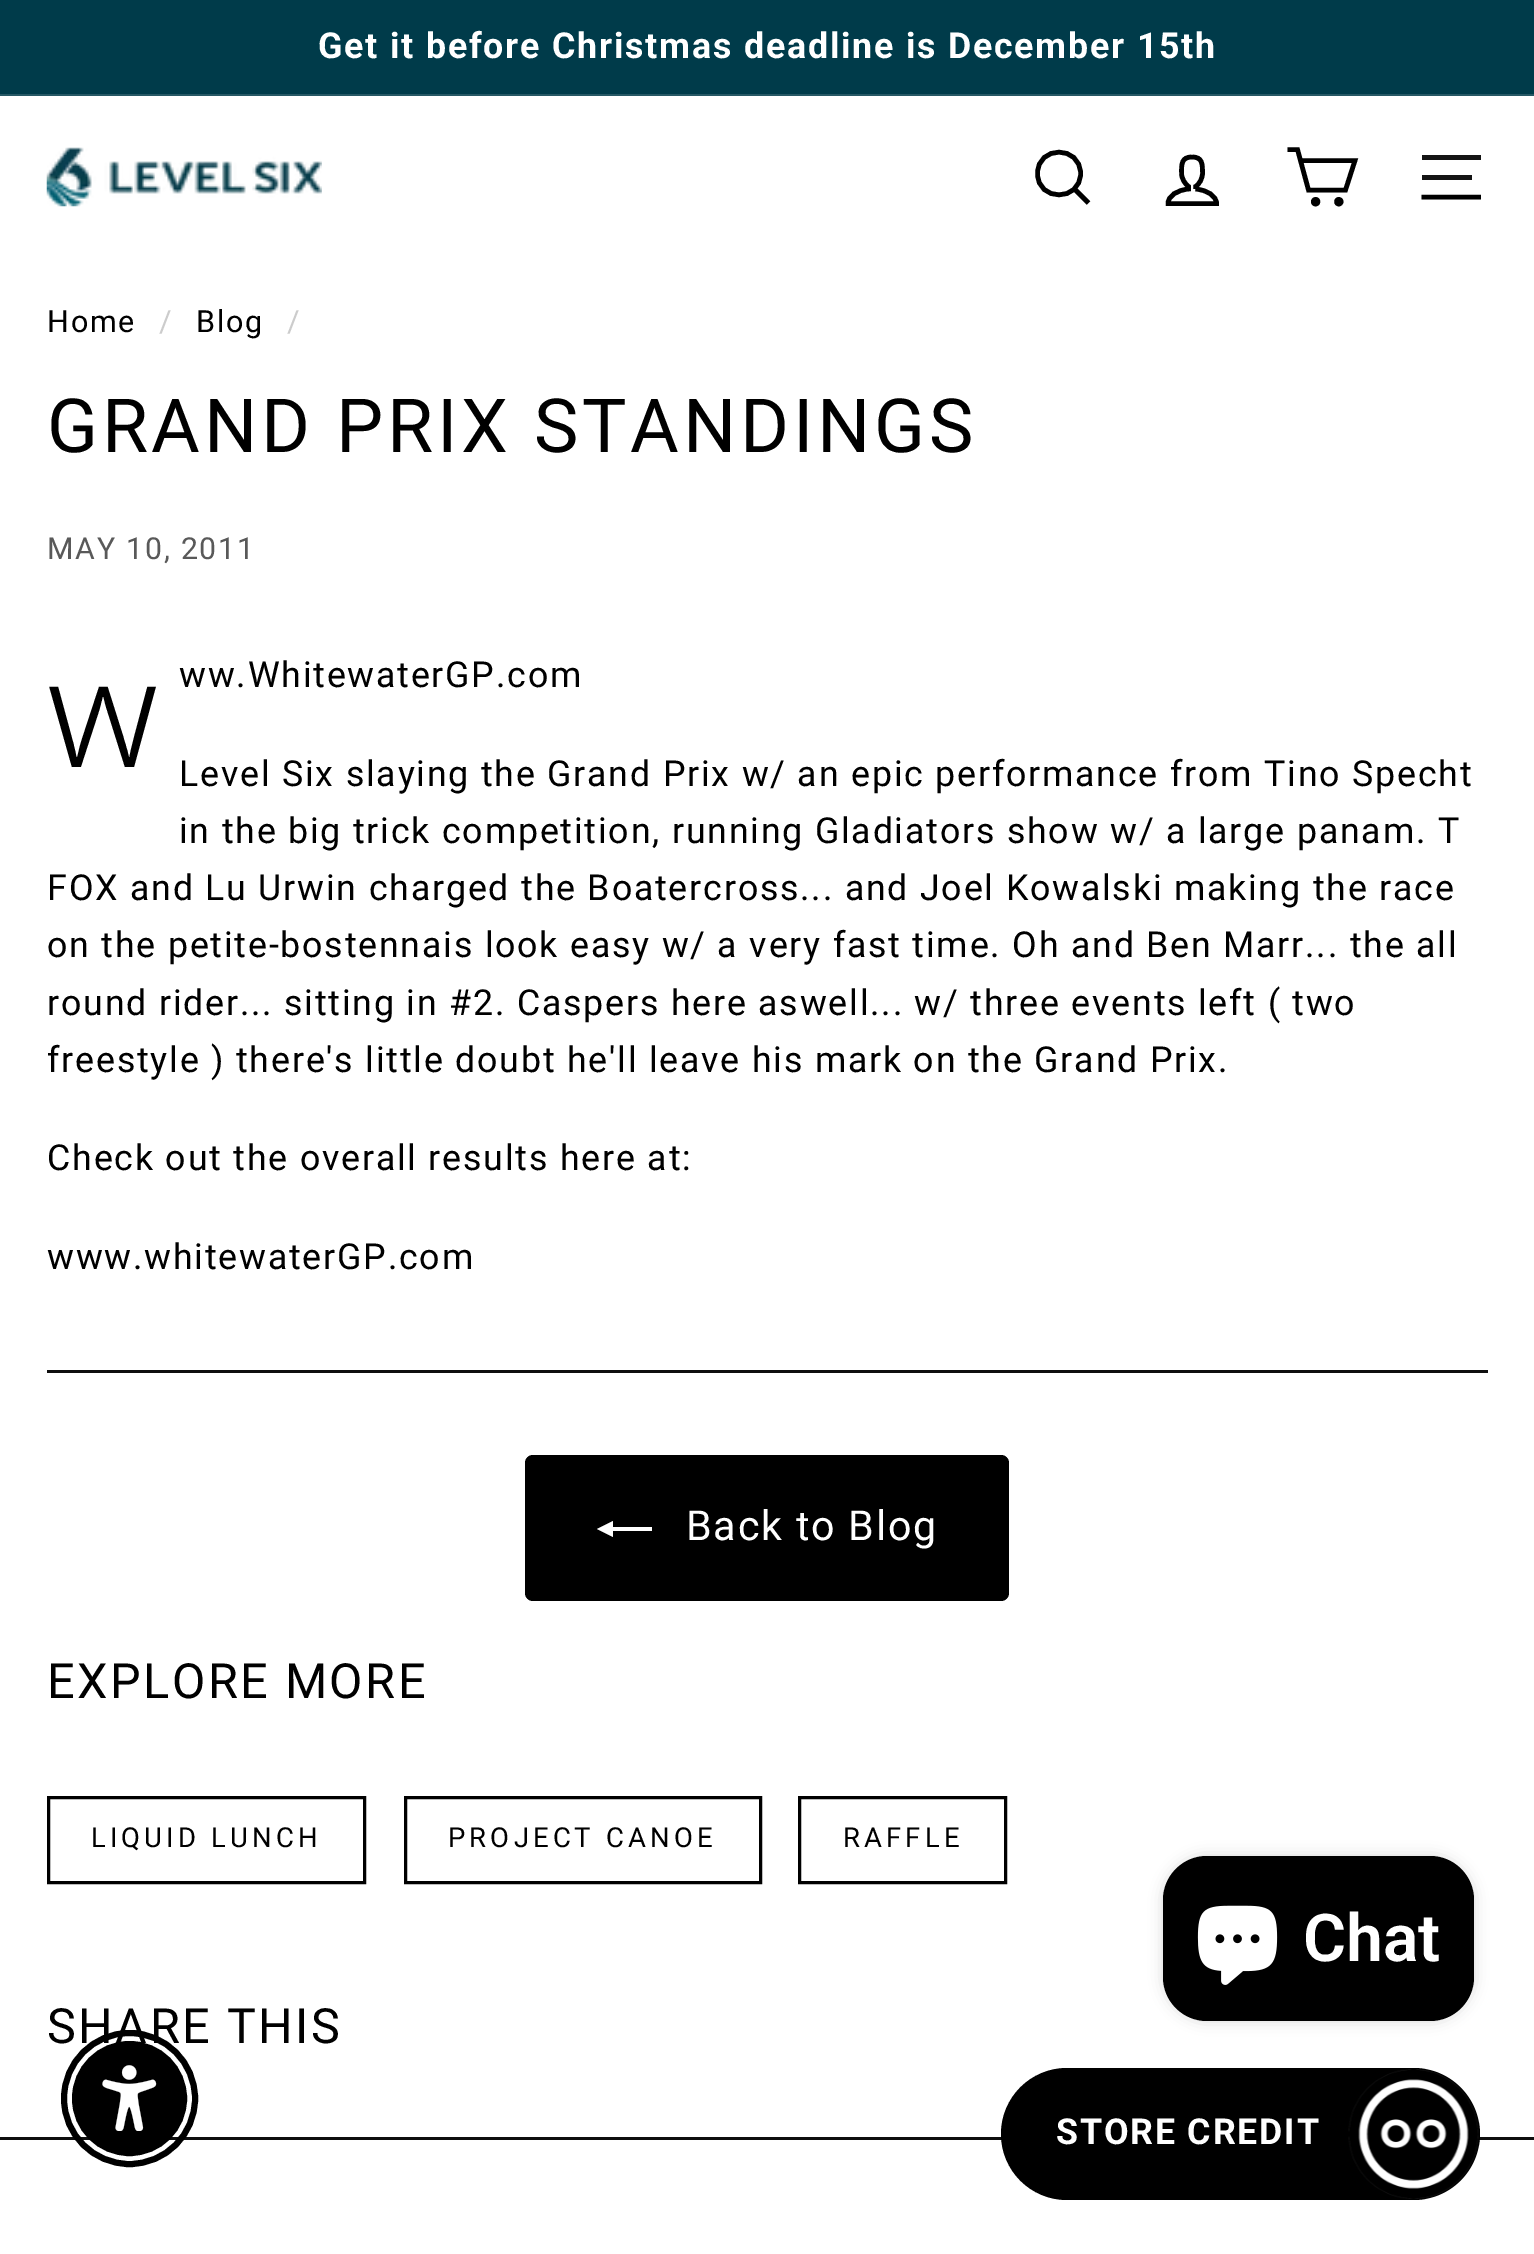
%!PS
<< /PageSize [1534 2254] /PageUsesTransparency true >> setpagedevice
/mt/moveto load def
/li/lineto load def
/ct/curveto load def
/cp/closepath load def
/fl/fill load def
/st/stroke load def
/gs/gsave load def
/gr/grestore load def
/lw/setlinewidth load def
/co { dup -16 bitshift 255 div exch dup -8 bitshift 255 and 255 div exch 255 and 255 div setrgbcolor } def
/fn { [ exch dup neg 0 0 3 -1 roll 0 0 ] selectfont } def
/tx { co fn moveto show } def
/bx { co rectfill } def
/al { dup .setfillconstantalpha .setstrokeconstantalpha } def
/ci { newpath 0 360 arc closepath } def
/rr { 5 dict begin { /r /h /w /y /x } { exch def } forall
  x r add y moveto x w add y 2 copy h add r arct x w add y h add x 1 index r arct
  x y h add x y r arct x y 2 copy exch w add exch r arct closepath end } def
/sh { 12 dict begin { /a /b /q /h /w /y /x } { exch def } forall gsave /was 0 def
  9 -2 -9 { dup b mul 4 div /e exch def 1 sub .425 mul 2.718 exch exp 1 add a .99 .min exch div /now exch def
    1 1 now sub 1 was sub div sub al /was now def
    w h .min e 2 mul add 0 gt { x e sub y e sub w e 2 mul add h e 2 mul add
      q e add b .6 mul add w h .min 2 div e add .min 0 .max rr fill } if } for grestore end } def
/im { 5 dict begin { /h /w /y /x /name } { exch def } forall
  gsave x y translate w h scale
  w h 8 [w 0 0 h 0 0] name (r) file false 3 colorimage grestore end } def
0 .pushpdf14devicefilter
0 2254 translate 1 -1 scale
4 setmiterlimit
0 0 1534 2254 16#FFFFFF bx
0 0 1534 94 16#003B4A bx
0 94 1534 2 16#265865 bx
(media/1.raw) 46 147 276 60 im
16#000000 co
4.6 lw
1080.5 173.5 mt 1080.5 202 1037.5 202 1037.5 173.5 ct 1037.5 145 1080.5 145 1080.5 173.5 ct 1088.5 203 mt 1074.5 189 li st
1195.5 189 mt 1195.5 186.5 li 1199.5 184 1202.5 178.5 1202.5 173 ct 1202.5 164 1202.5 157 1192 157 ct 1181.5 157 1181.5 164 1181.5 173 ct 1181.5 178.5 1185 184 1188.5 186.5 ct 1188.5 189 li 1177 190 1168 196 1168 203.5 ct 1216.5 203.5 li 1216.5 196 1207.5 190 1195.5 189 ct st
1300.5 160.5 mt 1355 160.5 li 1345.5 190 li 1308.5 190 li 1297.5 149.5 li 1287.5 149.5 li st
1315.6 201.7 2.3 ci st
1338.8 201.7 2.3 ci st
1422 155 59 5 16#141414 bx
1422 175 50 5 16#141414 bx
16#000000 co
1421.5 197 mt 1481 197 li st
47 1370 1441 3 16#0F0F0F bx
16#000000 co
525 1455 484 146 8 rr fl
16#FFFFFF co
652 1527 mt 652 1531 li 613 1531 li 613 1537 li 597 1529 li 613 1521 li 613 1527 li cp fl
16#000000 co
3 lw
48.5 1797.5 316 85 rectstroke
405.5 1797.5 355 85 rectstroke
799.5 1797.5 206 85 rectstroke
0 2137 1534 3 16#0F0F0F bx
16#000000 co
1163 1856 311 165 44 7 .15 sh
1163 1856 311 165 44 rr fl
(media/2.raw) 1197 1905 81 80 im
6 lw
129.5 2098.5 65.5 ci st
129.5 2098.5 56 ci gs fl gr
3 lw
st
(media/3.raw) 102 2065 55 66 im
1001 2068 479 132 66 rr fl
(media/4.raw) 1348 2069 131 130 im
/Roboto-Bold 35.75 fn
16#FFFFFF co
318 58 mt 1.8 0 (Get it before Christmas deadline is December 15th) ashow
/Roboto-Regular 30.5 fn
16#000000 co
47 332 mt 1.8 0 (Home) ashow
16#CCCCCC co
159 332 mt 1.8 0 (/) ashow
16#000000 co
196 332 mt 1.8 0 (Blog) ashow
16#CCCCCC co
287 332 mt 1.8 0 (/) ashow
/Roboto-Regular 74.75 fn
16#000000 co
47 452 mt 3.75 0 (GRAND PRIX STANDINGS) ashow
/Roboto-Regular 30.25 fn
16#595959 co
47 559 mt 1.8 0 (MAY 10, 2011) ashow
/Roboto-Regular 35.75 fn
16#000000 co
179 687 mt 1.8 0 (ww.WhitewaterGP.com) ashow
/NotoSans-Light 151 fn
47 767 mt 1.8 0 (w) ashow
/Roboto-Regular 35.75 fn
179 786 mt 1.8 0 (Level Six slaying the Grand Prix w/ an epic performance from Tino Specht) ashow
179 843 mt 1.8 0 (in the big trick competition, running Gladiators show w/ a large panam. T) ashow
47 900 mt 1.8 0 (FOX and Lu Urwin charged the Boatercross... and Joel Kowalski making the race) ashow
47 957 mt 1.8 0 (on the petite-bostennais look easy w/ a very fast time. Oh and Ben Marr... the all) ashow
47 1015 mt 1.8 0 (round rider... sitting in #2. Caspers here aswell... w/ three events left \( two) ashow
47 1072 mt 1.8 0 (freestyle \) there's little doubt he'll leave his mark on the Grand Prix.) ashow
47 1170 mt 1.8 0 (Check out the overall results here at:) ashow
47 1269 mt 1.8 0 (www.whitewaterGP.com) ashow
/Roboto-Regular 41.25 fn
16#FFFFFF co
686 1540 mt 1.8 0 (Back to Blog) ashow
/Roboto-Regular 48.5 fn
16#000000 co
47 1698 mt 2.5 0 (EXPLORE MORE) ashow
/Roboto-Regular 27.5 fn
91 1847 mt 4.1 0 (LIQUID LUNCH) ashow
448 1847 mt 4.1 0 (PROJECT CANOE) ashow
843 1847 mt 4.1 0 (RAFFLE) ashow
/Roboto-Regular 48.5 fn
47 2043 mt 2.5 0 (SHARE THIS) ashow
(Chat) 1303 1961 /Roboto-SemiBold 66 16#FFFFFF tx
/Roboto-Bold 35.75 fn
1056 2144 mt 1.8 0 (STORE CREDIT) ashow
.poppdf14devicefilter showpage
